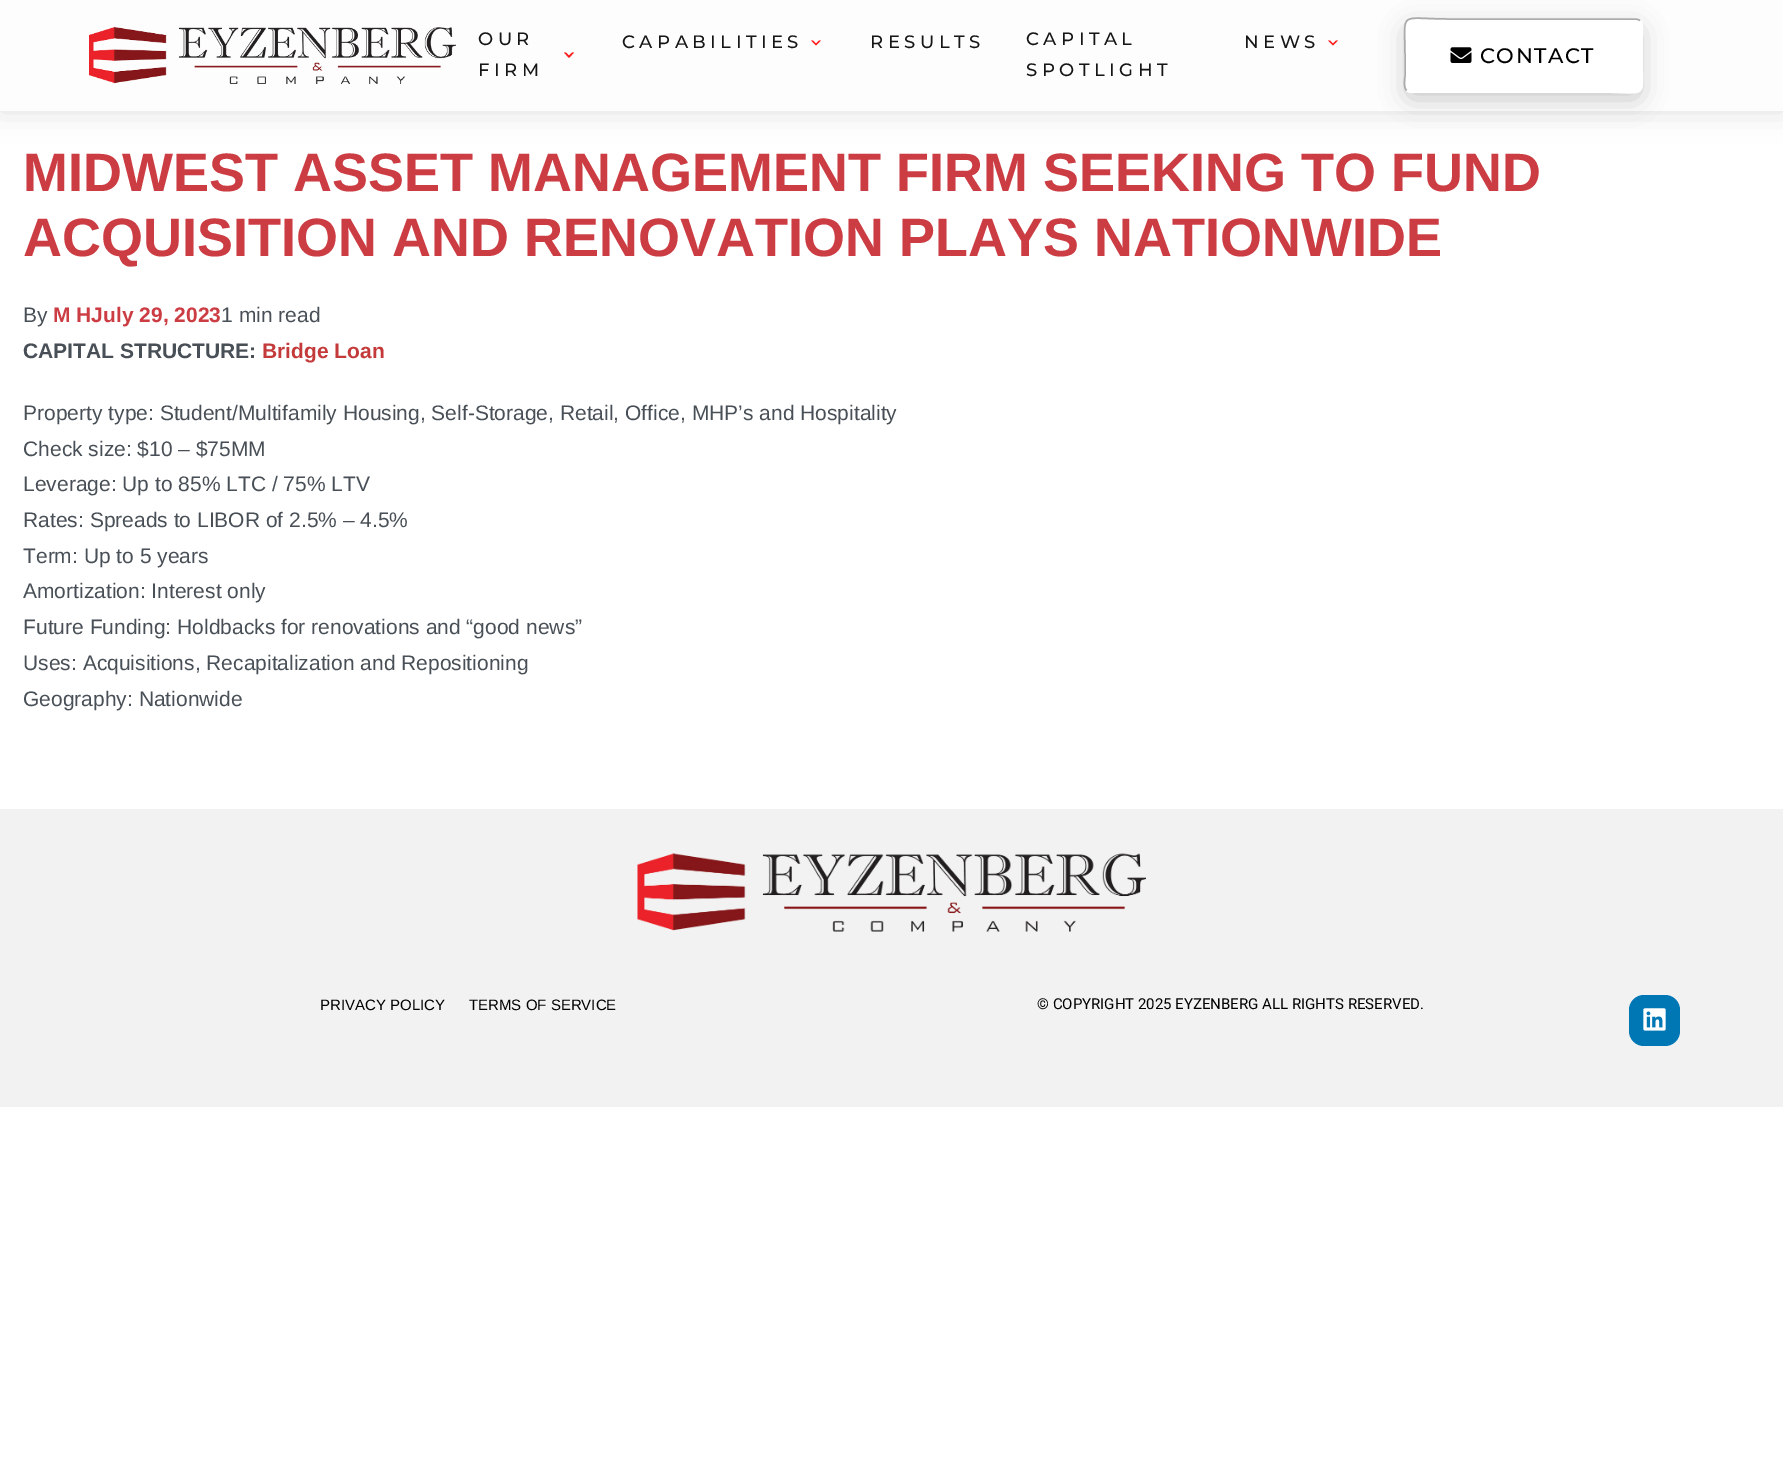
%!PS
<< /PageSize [1783 1469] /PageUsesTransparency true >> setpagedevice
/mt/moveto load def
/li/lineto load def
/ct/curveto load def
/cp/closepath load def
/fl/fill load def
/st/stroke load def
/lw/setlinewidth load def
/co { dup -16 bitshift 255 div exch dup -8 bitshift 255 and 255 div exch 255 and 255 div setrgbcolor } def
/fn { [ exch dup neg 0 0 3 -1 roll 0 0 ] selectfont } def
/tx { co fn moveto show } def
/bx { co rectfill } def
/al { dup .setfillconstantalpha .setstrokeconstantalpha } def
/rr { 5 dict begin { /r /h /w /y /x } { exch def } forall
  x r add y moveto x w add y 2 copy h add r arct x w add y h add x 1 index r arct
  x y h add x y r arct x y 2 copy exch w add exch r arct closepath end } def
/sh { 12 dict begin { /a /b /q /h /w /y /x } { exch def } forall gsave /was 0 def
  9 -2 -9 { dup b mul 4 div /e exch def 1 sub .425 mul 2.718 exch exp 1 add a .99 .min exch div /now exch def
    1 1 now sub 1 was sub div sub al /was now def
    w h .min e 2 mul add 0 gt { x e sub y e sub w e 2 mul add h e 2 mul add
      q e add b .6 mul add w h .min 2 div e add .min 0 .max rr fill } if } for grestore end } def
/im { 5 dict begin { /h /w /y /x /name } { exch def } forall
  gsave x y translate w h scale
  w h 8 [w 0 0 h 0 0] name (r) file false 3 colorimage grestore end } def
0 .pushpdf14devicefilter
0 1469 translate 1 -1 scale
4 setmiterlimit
0 0 1783 1469 16#FFFFFF bx
16#B9B9B9 co
0 0 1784 111 0 15 .5 sh
0 0 1783 111 16#FDFDFD bx
(media/1.raw) 89 27 367 57 im
16#FF1A1A co
574 52.5 mt 569 58 li 569 55.5 li 572 52.5 li cp 569 58 mt 564 52.5 li 566 52.5 li 569 55.5 li cp fl
821 40.5 mt 816 45.5 li 816 43.5 li 819 40.5 li cp 816 45.5 mt 811 40.5 li 813 40.5 li 816 43.5 li cp fl
1338 40.5 mt 1333 45.5 li 1333 43.5 li 1336 40.5 li cp 1333 45.5 mt 1328 40.5 li 1330 40.5 li 1333 43.5 li cp fl
16#919191 co
1406 27 235 72 6 13 .5 sh
16#FFFFFF co
1404 18 239 75 8 rr fl
1.5 lw
1640 20.5 mt 1643.5 24.5 1642 32 1642 35.5 ct 1642 55.5 li 1642 101.5 1649 92 1598 92 ct 1411.5 92 li 1409.5 92 1408 91.5 1406.5 90.5 ct st
16#AAAAAA co
1406.5 90.5 mt 1403 86.5 1405 79 1405 75.5 ct 1405 55.5 li 1405 9.5 1397.5 19 1449 19 ct 1635 19 li 1637 19 1638.5 19.5 1640 20.5 ct st
(media/2.raw) 1450 47 22 16 im
0 809 1783 298 16#F2F2F2 bx
(media/3.raw) 637 853 509 79 im
16#0077B5 co
1629 995 51 51 15 rr fl
(media/4.raw) 1643 1008 23 23 im
/Montserrat-Medium 18 fn
16#161616 co
478 45 mt 4.5 0 (OUR) ashow
478 76 mt 4.5 0 (FIRM) ashow
622 48 mt 4.5 0 (CAPABILITIES) ashow
870 48 mt 4.5 0 (RESULTS) ashow
1026 45 mt 4.5 0 (CAPITAL) ashow
1026 76 mt 4.5 0 (SPOTLIGHT) ashow
1244 48 mt 4.5 0 (NEWS) ashow
/Montserrat-Medium 21 fn
16#000000 co
1480 63 mt 1.5 0 (CONTACT) ashow
(MIDWEST ASSET MANAGEMENT FIRM SEEKING TO FUND) 23 191 /LiberationSans-Bold 54 16#CC3C43 tx
(ACQUISITION AND RENOVATION PLAYS NATIONWIDE) 23 256 /LiberationSans-Bold 54 16#CC3C43 tx
(By) 23 322 /LiberationSans-Regular 21 16#484F56 tx
(M HJuly 29, 2023) 53 322 /LiberationSans-Bold 21 16#CC3C43 tx
(1 min read) 221 322 /LiberationSans-Regular 21 16#484F56 tx
(CAPITAL STRUCTURE:) 23 358 /LiberationSans-Bold 21 16#484F56 tx
(Bridge Loan) 262 358 /LiberationSans-Bold 21 16#C43A3A tx
(Property type: Student/Multifamily Housing, Self-Storage, Retail, Office, MHP’s and Hospitality) 23 420 /LiberationSans-Regular 21 16#484F56 tx
(Check size: $10 – $75MM) 23 456 /LiberationSans-Regular 21 16#484F56 tx
(Leverage: Up to 85% LTC / 75% LTV) 23 491 /LiberationSans-Regular 21 16#484F56 tx
(Rates: Spreads to LIBOR of 2.5% – 4.5%) 23 527 /LiberationSans-Regular 21 16#484F56 tx
(Term: Up to 5 years) 23 563 /LiberationSans-Regular 21 16#484F56 tx
(Amortization: Interest only) 23 598 /LiberationSans-Regular 21 16#484F56 tx
(Future Funding: Holdbacks for renovations and “good news”) 23 634 /LiberationSans-Regular 21 16#484F56 tx
(Uses: Acquisitions, Recapitalization and Repositioning) 23 670 /LiberationSans-Regular 21 16#484F56 tx
(Geography: Nationwide) 23 706 /LiberationSans-Regular 21 16#484F56 tx
(PRIVACY POLICY) 320 1010 /LiberationSans-Regular 15 16#000000 tx
(TERMS OF SERVICE) 469 1010 /LiberationSans-Regular 15 16#000000 tx
(© COPYRIGHT 2025 EYZENBERG ALL RIGHTS RESERVED.) 1037 1009 /Roboto-Regular 15 16#000000 tx
.poppdf14devicefilter showpage
